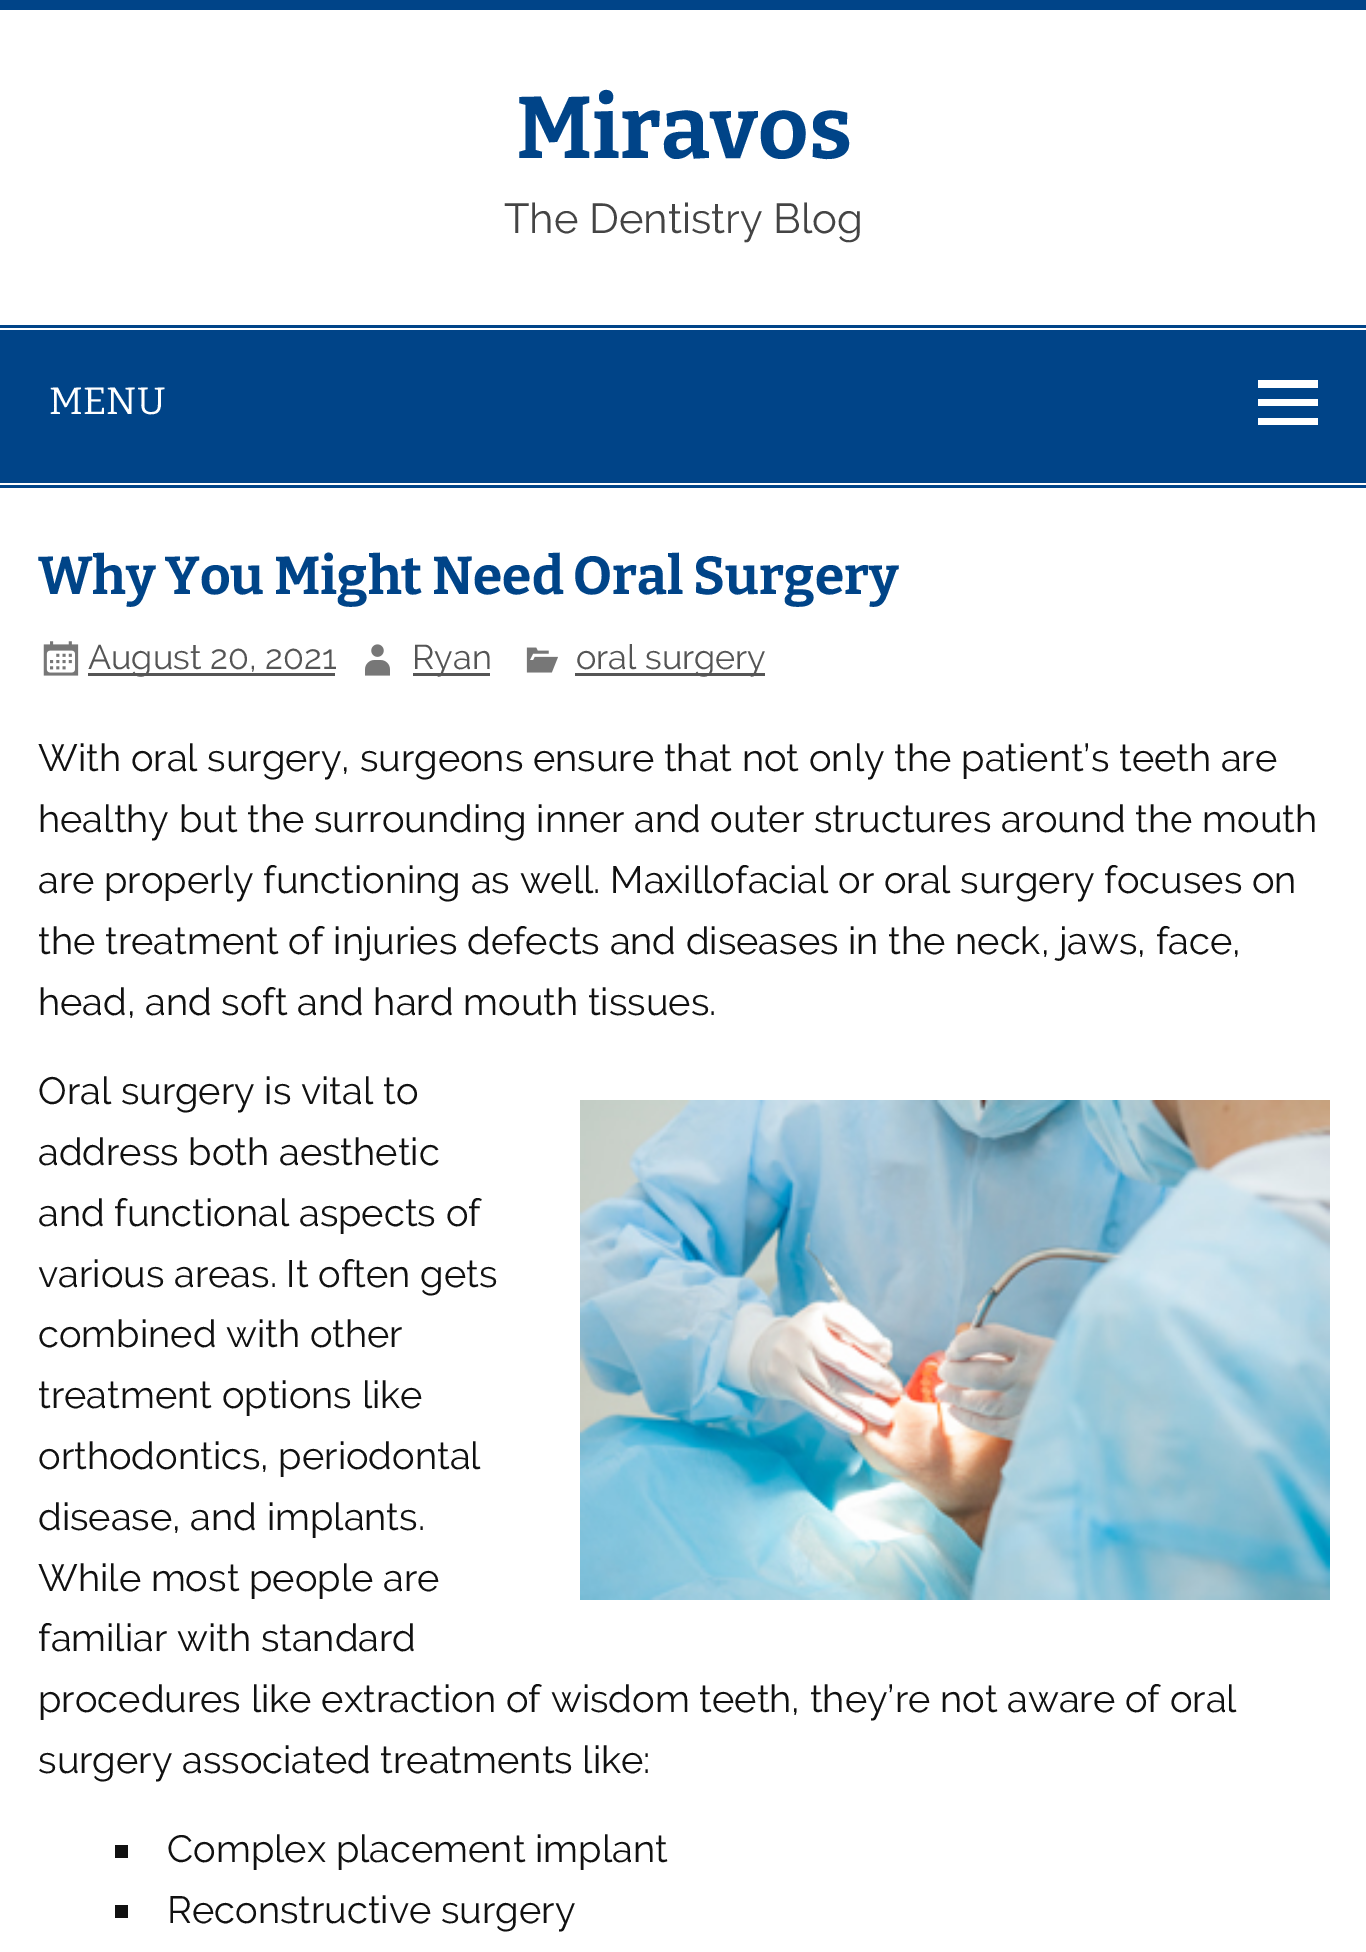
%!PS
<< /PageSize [1366 1952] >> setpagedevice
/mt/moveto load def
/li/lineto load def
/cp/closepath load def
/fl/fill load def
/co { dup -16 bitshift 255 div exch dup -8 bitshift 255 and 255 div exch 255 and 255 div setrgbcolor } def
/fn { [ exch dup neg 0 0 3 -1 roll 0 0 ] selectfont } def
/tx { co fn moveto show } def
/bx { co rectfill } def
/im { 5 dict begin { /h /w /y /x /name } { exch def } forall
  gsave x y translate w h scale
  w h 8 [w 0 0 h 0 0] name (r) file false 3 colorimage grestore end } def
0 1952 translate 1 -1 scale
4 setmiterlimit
0 0 1366 1952 16#FFFFFF bx
0 0 1366 10 16#004488 bx
0 325 1366 3 16#004488 bx
0 485 1366 3 16#004488 bx
0 330 1366 153 16#004488 bx
16#FFFFFF co
1258 425 mt 1258 418 li 1318 418 li 1318 425 li cp 1258 380 mt 1318 380 li 1318 388 li 1258 388 li cp 1258 406 mt 1258 399 li 1318 399 li 1318 406 li cp fl
(media/1.raw) 43 641 36 35 im
88 673 247 3 16#555555 bx
(media/2.raw) 365 644 25 32 im
413 673 77 3 16#555555 bx
(media/3.raw) 526 647 32 26 im
575 673 190 3 16#555555 bx
(media/4.raw) 580 1100 750 500 im
115 1845 13 13 16#111111 bx
115 1905 13 13 16#111111 bx
(Miravos) 516 158 /Bitter-Bold 87.5 16#004488 tx
(The Dentistry Blog) 504 233 /Raleway-Regular 41.75 16#444444 tx
(MENU) 49 414 /Bitter-Regular 38 16#FFFFFF tx
(Why You Might Need Oral Surgery) 38 594 /Bitter-Bold 53.25 16#004488 tx
(August 20, 2021) 88 669 /Raleway-Regular 34.25 16#555555 tx
(Ryan) 412 669 /Raleway-Regular 34.25 16#555555 tx
(oral surgery) 576 669 /Raleway-Regular 34.25 16#555555 tx
(With oral surgery, surgeons ensure that not only the patient’s teeth are) 38 771 /Raleway-Regular 38 16#111111 tx
(healthy but the surrounding inner and outer structures around the mouth) 38 832 /Raleway-Regular 38 16#111111 tx
(are properly functioning as well. Maxillofacial or oral surgery focuses on) 38 893 /Raleway-Regular 38 16#111111 tx
(the treatment of injuries defects and diseases in the neck, jaws, face,) 38 954 /Raleway-Regular 38 16#111111 tx
(head, and soft and hard mouth tissues.) 38 1015 /Raleway-Regular 38 16#111111 tx
(Oral surgery is vital to) 38 1104 /Raleway-Regular 38 16#111111 tx
(address both aesthetic) 38 1165 /Raleway-Regular 38 16#111111 tx
(and functional aspects of) 38 1226 /Raleway-Regular 38 16#111111 tx
(various areas. It often gets) 38 1287 /Raleway-Regular 38 16#111111 tx
(combined with other) 38 1347 /Raleway-Regular 38 16#111111 tx
(treatment options like) 38 1408 /Raleway-Regular 38 16#111111 tx
(orthodontics, periodontal) 38 1469 /Raleway-Regular 38 16#111111 tx
(disease, and implants.) 38 1530 /Raleway-Regular 38 16#111111 tx
(While most people are) 38 1591 /Raleway-Regular 38 16#111111 tx
(familiar with standard) 38 1651 /Raleway-Regular 38 16#111111 tx
(procedures like extraction of wisdom teeth, they’re not aware of oral) 38 1712 /Raleway-Regular 38 16#111111 tx
(surgery associated treatments like:) 38 1773 /Raleway-Regular 38 16#111111 tx
(Complex placement implant) 167 1862 /Raleway-Regular 38 16#111111 tx
(Reconstructive surgery) 167 1923 /Raleway-Regular 38 16#111111 tx
showpage
